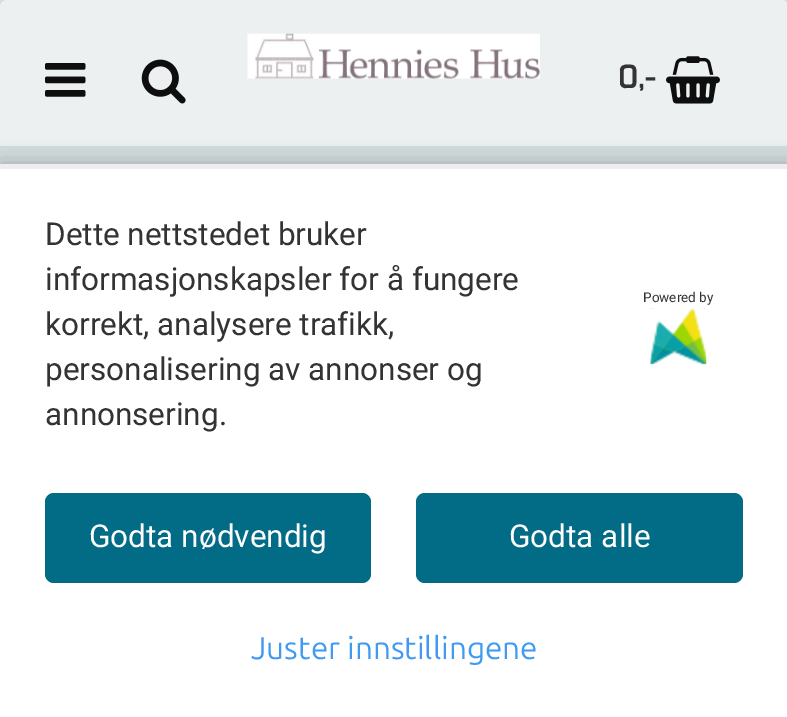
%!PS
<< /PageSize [787 717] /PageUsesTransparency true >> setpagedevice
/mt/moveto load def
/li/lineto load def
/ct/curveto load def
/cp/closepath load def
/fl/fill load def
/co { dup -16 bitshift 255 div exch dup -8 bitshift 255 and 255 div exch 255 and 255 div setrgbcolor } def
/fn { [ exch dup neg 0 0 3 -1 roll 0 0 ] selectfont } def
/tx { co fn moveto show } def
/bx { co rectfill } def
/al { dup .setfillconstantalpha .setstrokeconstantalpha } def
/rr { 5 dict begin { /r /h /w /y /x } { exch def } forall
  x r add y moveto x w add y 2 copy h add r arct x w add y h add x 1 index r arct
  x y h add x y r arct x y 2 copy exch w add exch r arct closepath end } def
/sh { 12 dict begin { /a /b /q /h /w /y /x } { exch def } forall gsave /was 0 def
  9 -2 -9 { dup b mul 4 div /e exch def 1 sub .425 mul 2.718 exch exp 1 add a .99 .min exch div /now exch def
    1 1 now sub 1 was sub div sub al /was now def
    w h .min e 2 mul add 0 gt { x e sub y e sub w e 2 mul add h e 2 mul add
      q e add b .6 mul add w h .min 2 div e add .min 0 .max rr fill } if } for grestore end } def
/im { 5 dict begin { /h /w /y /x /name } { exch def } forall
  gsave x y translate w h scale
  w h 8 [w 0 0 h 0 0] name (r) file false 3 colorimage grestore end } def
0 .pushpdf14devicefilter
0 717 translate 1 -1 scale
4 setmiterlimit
0 0 787 717 16#D4DEDE bx
16#ECF0F1 co
7 0 mt 781 0 li 785 0 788 3 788 7 ct 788 146 li 0 146 li 0 7 li 0 3 3 0 7 0 ct cp fl
(media/1.raw) 45 63 41 34 im
(media/2.raw) 141 59 45 45 im
(media/3.raw) 247 33 293 46 im
(media/4.raw) 666 56 54 48 im
16#000000 co
0 164 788 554 0 11 .25 sh
0 169 787 548 16#FFFFFF bx
0 164 787 5 16#EEEEEE bx
(media/5.raw) 650 308 57 57 im
16#026B85 co
45 493 326 90 9 rr fl
416 493 327 90 9 rr fl
(0,-) 618 88 /Exo-SemiBold 31.5 16#333333 tx
(Dette nettstedet bruker) 45 245 /Roboto-Regular 31.5 16#333333 tx
(informasjonskapsler for å fungere) 45 290 /Roboto-Regular 31.5 16#333333 tx
(korrekt, analysere trafikk,) 45 335 /Roboto-Regular 31.5 16#333333 tx
(personalisering av annonser og) 45 380 /Roboto-Regular 31.5 16#333333 tx
(annonsering.) 45 425 /Roboto-Regular 31.5 16#333333 tx
(Powered by) 643 302 /Roboto-Regular 13.5 16#333333 tx
(Godta nødvendig) 89 547 /Roboto-Regular 31.5 16#FFFFFF tx
(Godta alle) 509 547 /Roboto-Regular 31.5 16#FFFFFF tx
(Juster innstillingene) 251 659 /Ubuntu-Regular 31.5 16#409AEF tx
.poppdf14devicefilter showpage
